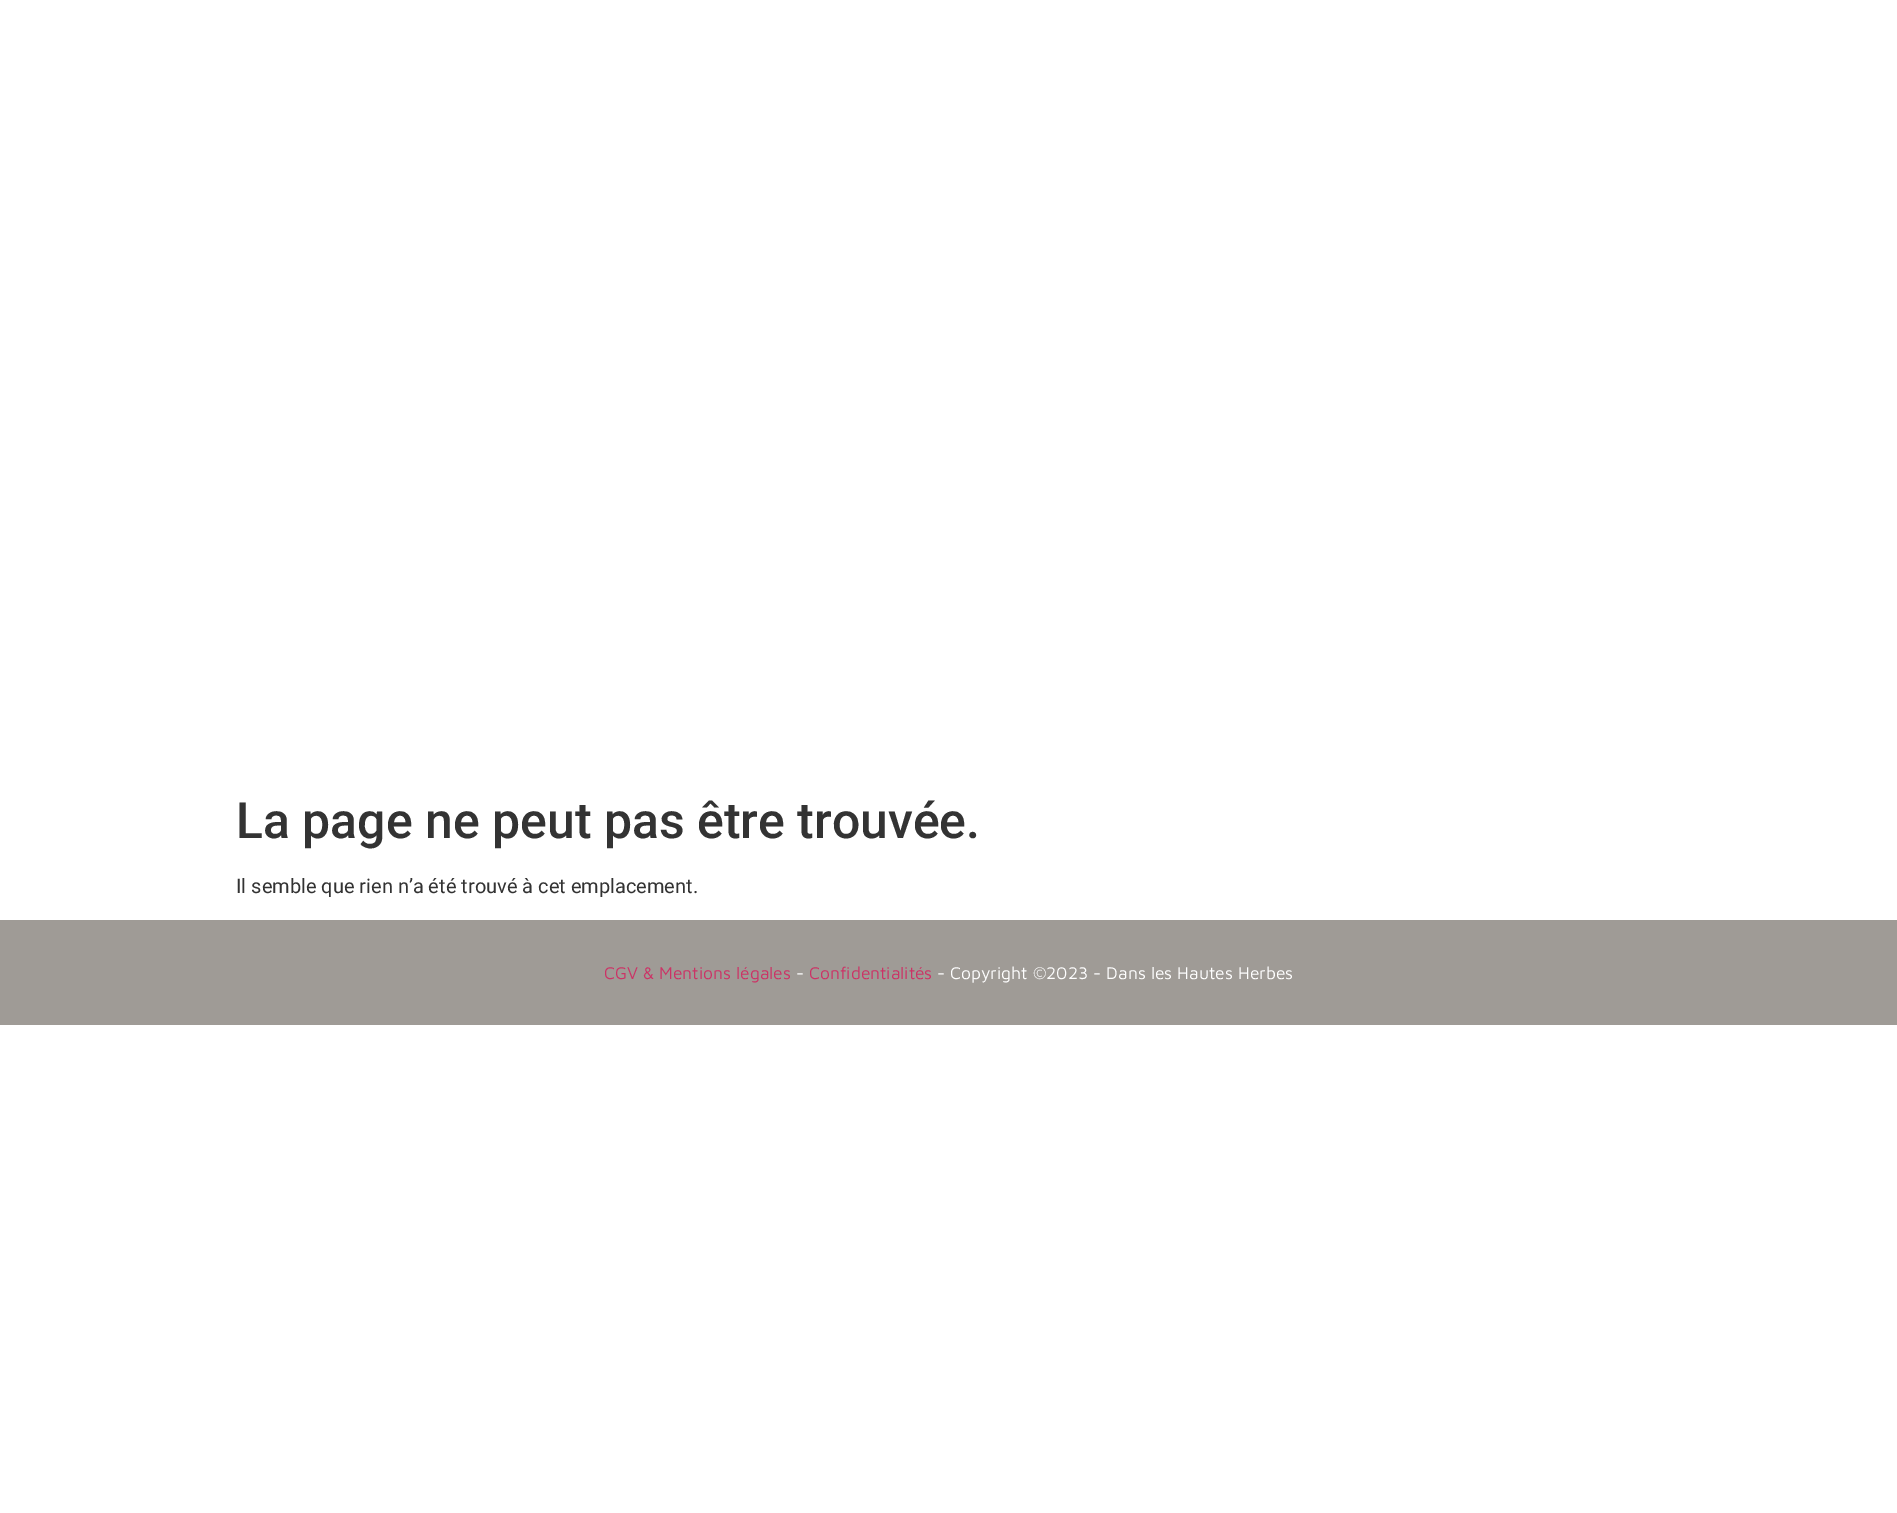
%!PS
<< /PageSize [1897 1513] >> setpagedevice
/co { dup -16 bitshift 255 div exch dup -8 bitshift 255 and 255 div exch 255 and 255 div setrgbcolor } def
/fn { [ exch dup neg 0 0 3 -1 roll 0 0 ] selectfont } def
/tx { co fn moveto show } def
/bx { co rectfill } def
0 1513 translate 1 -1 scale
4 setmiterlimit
0 0 1897 1513 16#FFFFFF bx
0 920 1897 105 16#9F9B96 bx
(La page ne peut pas être trouvée.) 236 838 /Roboto-Medium 50 16#333333 tx
(Il semble que rien n’a été trouvé à cet emplacement.) 236 893 /Roboto-Regular 20 16#333333 tx
(CGV & Mentions légales) 604 979 /MavenPro-Regular 17.5 16#CC3366 tx
(-) 796 979 /MavenPro-Regular 17.5 16#FFFFFF tx
(Confidentialités) 809 979 /MavenPro-Regular 17.5 16#CC3366 tx
(- Copyright ©2023 - Dans les Hautes Herbes) 937 979 /MavenPro-Regular 17.5 16#FFFFFF tx
showpage
